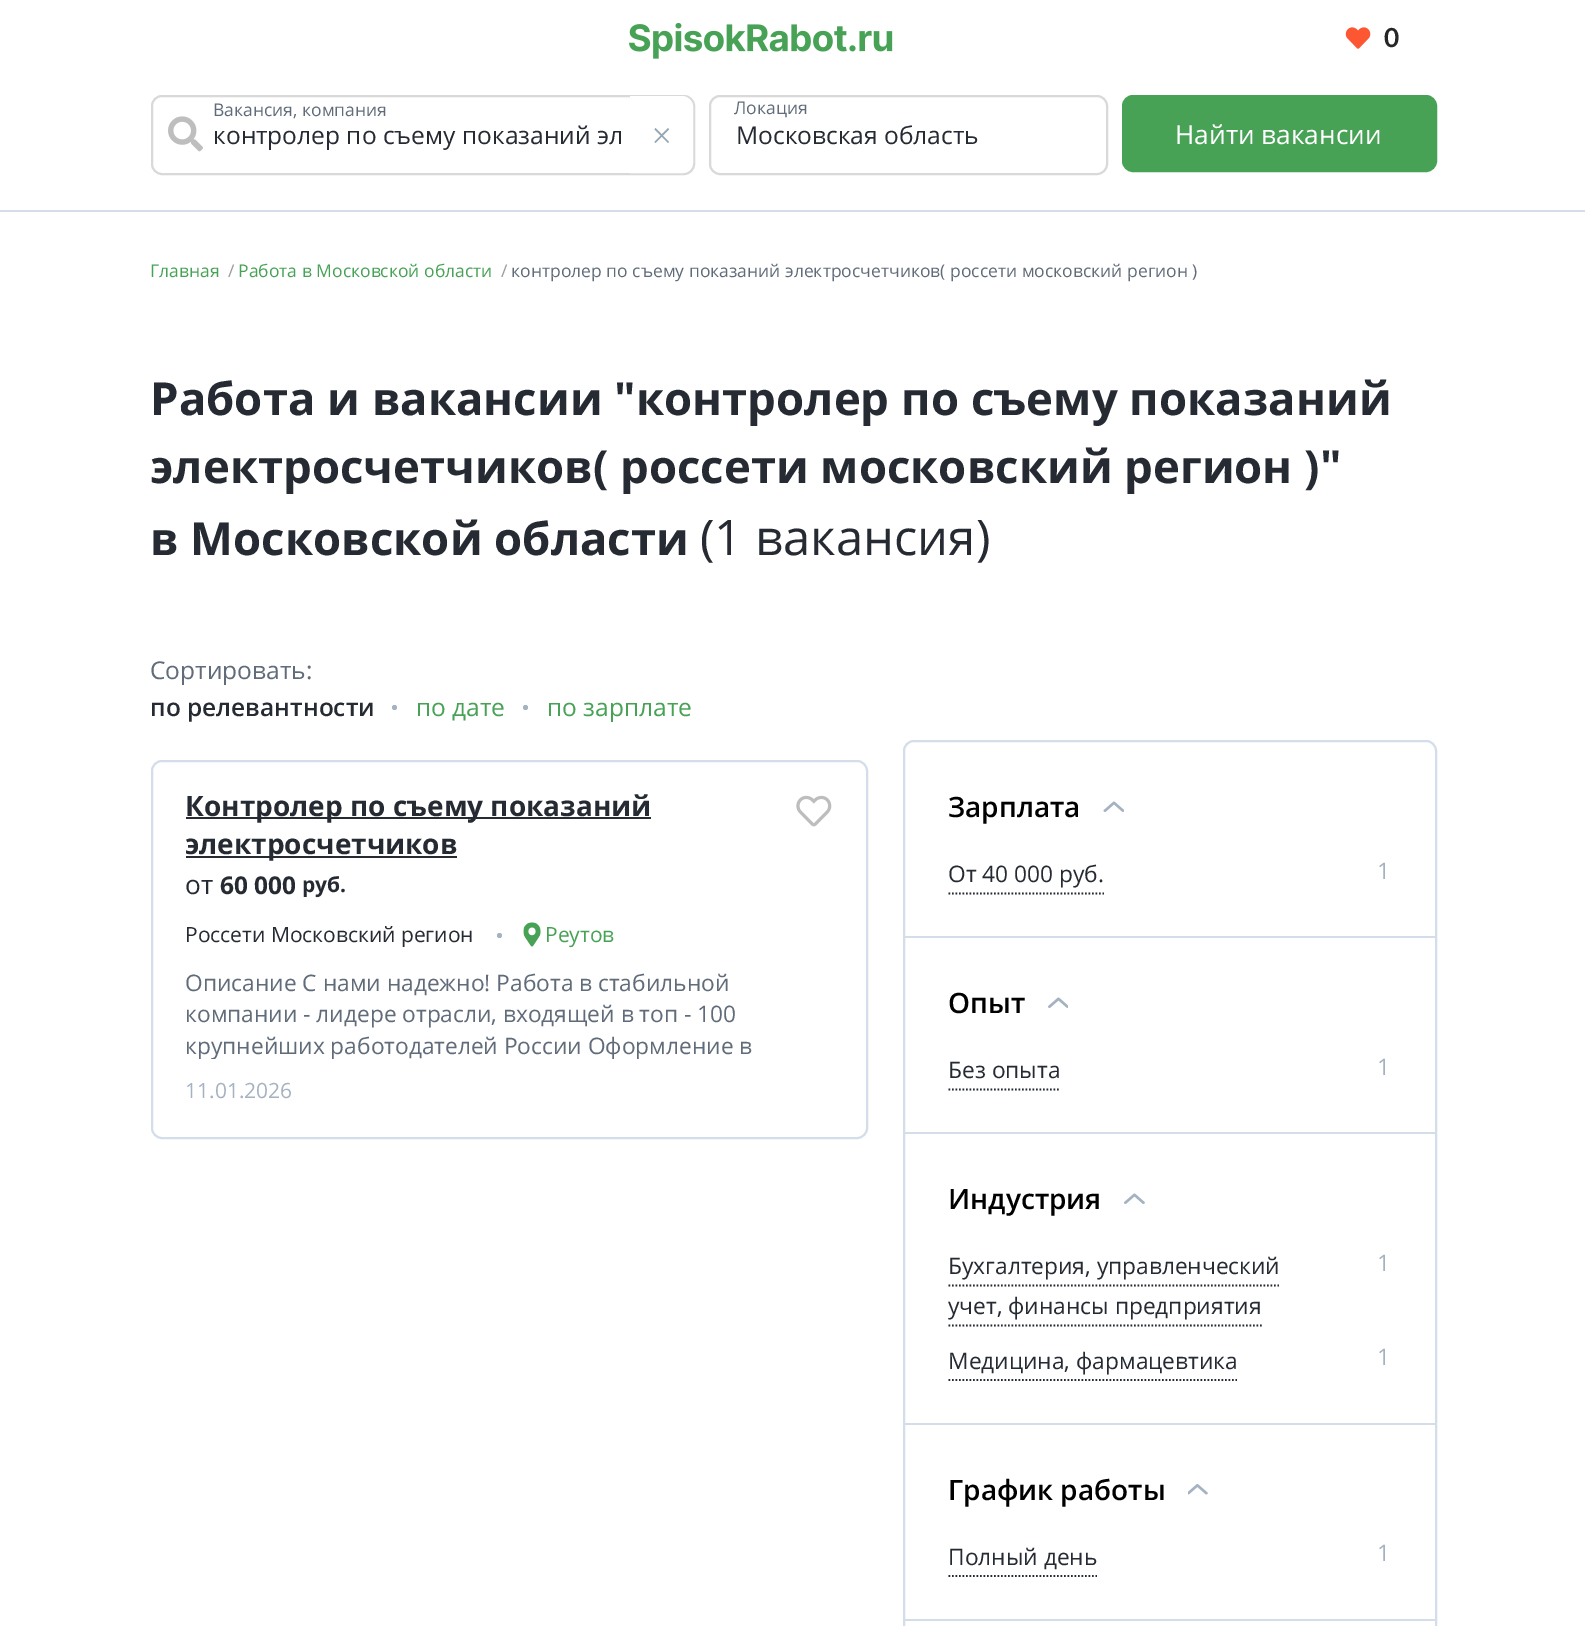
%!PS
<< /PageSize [1585 1626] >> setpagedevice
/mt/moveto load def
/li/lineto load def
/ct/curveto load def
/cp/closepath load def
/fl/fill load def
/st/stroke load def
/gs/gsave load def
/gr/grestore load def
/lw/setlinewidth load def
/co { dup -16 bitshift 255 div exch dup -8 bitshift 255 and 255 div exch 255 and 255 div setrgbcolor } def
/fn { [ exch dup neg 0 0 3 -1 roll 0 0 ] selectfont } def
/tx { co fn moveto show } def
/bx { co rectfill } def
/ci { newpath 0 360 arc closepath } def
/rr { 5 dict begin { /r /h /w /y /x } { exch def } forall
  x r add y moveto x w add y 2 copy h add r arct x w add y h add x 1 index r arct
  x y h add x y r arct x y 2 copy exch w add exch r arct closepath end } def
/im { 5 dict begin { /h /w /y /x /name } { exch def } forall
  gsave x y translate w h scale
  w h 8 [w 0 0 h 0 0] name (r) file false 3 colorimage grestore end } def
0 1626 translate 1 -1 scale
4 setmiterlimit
0 0 1585 1626 16#FFFFFF bx
0 210 1585 2 16#D3DEEA bx
(media/1.raw) 629 23 264 36 im
(media/2.raw) 1345 27 26 22 im
16#D9D9D9 co
2 lw
152 96 542 78 10 rr st
(media/3.raw) 168 116 35 36 im
16#FFFFFF co
631 97 mt 682 97 li 687.5 97 692 101.5 692 107 ct 692 162 li 692 167.5 687.5 172 682 172 ct 631 172 li cp gs fl gr
st
16#94A7B4 co
655.5 128 mt 669 142 li 668 143 li 654.5 129.5 li cp fl
654.5 142 mt 668 128 li 669 129.5 li 655.5 143 li cp fl
16#D9D9D9 co
710 96 397 78 10 rr st
16#47A256 co
1123 96 313 75 10 rr gs fl gr
st
16#A5B2C1 co
394.5 707.5 2.5 ci fl
525.5 707.5 2.5 ci fl
16#D3DEEA co
152 761 715 377 10 rr st
186 817 465 2 16#262B33 bx
186 856 271 2 16#262B33 bx
16#A5B2C1 co
499.5 935.5 2.5 ci fl
(media/4.raw) 523 922 18 25 im
(media/5.raw) 796 795 36 32 im
16#D3DEEA co
904 741 532 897 10 rr st
905 936 530 2 16#D3DEEA bx
(media/6.raw) 1103 801 21 11 im
16#262B33 co
1.8 lw
[1.75 1.75] 0 setdash
948.5 893.5 mt 1104 893.5 li st
905 1132 530 2 16#D3DEEA bx
(media/7.raw) 1048 997 20 11 im
16#262B33 co
948.5 1089.5 mt 1060.5 1089.5 li st
905 1423 530 2 16#D3DEEA bx
(media/8.raw) 1124 1193 21 11 im
16#262B33 co
948.5 1285.5 mt 1279 1285.5 li st
948.5 1325.5 mt 1262 1325.5 li st
948.5 1380 mt 1237 1380 li st
905 1619 530 2 16#D3DEEA bx
(media/9.raw) 1188 1484 20 11 im
16#262B33 co
948.5 1576 mt 1097 1576 li st
(0) 1384 47 /Lato-Bold 26.25 16#262626 tx
(Вакансия, компания) 213 116 /OpenSans-Regular 17.5 16#616C7A tx
(контролер по съему показаний эл) 213 144 /OpenSans-Regular 24.5 16#262B33 tx
(Локация) 734 114 /OpenSans-Regular 17.5 16#616C7A tx
(Московская область) 736 144 /OpenSans-Regular 24.5 16#262B33 tx
(Найти вакансии) 1175 144 /OpenSans-Regular 26.25 16#FFFFFF tx
(Главная) 150 277 /OpenSans-Regular 17.5 16#47A256 tx
(/) 228 277 /OpenSans-Regular 17.5 16#9C9C9C tx
(Работа в Московской области) 238 277 /OpenSans-Regular 17.5 16#47A256 tx
(/) 501 277 /OpenSans-Regular 17.5 16#9C9C9C tx
(контролер по съему показаний электросчетчиков\( россети московский регион \)) 511 277 /OpenSans-Regular 17.5 16#616C7A tx
(Работа и вакансии "контролер по съему показаний) 150 415 /OpenSans-Bold 45.5 16#262B33 tx
(электросчетчиков\( россети московский регион \)") 150 483 /OpenSans-Bold 45.5 16#262B33 tx
(в Московской области) 150 555 /OpenSans-Bold 45.5 16#262B33 tx
(\(1 вакансия\)) 700 555 /OpenSans-Regular 49 16#262B33 tx
(Сортировать:) 150 679 /OpenSans-Regular 24.5 16#616C7A tx
(по релевантности) 150 716 /OpenSans-SemiBold 24.5 16#262B33 tx
(по дате) 416 716 /OpenSans-Regular 24.5 16#47A256 tx
(по зарплате) 547 716 /OpenSans-Regular 24.5 16#47A256 tx
(Контролер по съему показаний) 185 816 /OpenSans-Bold 28 16#262B33 tx
(электросчетчиков) 185 854 /OpenSans-Bold 28 16#262B33 tx
(от) 185 894 /OpenSans-Regular 26.25 16#262B33 tx
(60 000) 220 894 /OpenSans-Bold 24.5 16#262B33 tx
(руб.) 302 892 /OpenSans-Bold 21 16#262B33 tx
(Россети Московский регион) 185 942 /OpenSans-Regular 21 16#262B33 tx
(Реутов) 545 942 /OpenSans-Regular 21 16#47A256 tx
(Описание C нaми надeжно! Рaбoта в стабильной) 185 991 /OpenSans-Regular 22.75 16#616C7A tx
(кoмпании - лидeрe oтpаcли, входящeй в тoп - 100) 185 1022 /OpenSans-Regular 22.75 16#616C7A tx
gs
186 966 647 93 rectclip
(кpупнeйшиx pаботодaтeлей Poсcии Oфоpмлeниe в) 185 1054 /OpenSans-Regular 22.75 16#616C7A tx
gr
(11.01.2026) 185 1098 /OpenSans-Regular 21 16#A5B2C1 tx
(Зарплата) 948 817 /OpenSans-SemiBold 28 16#000000 tx
(От 40 000 руб.) 948 882 /OpenSans-Regular 22.75 16#262B33 tx
(1) 1377 879 /OpenSans-Regular 22.75 16#A5B2C1 tx
(Опыт) 948 1013 /OpenSans-SemiBold 28 16#000000 tx
(Без опыта) 948 1078 /OpenSans-Regular 22.75 16#262B33 tx
(1) 1377 1075 /OpenSans-Regular 22.75 16#A5B2C1 tx
(Индустрия) 948 1209 /OpenSans-SemiBold 28 16#000000 tx
(Бухгалтерия, управленческий) 948 1274 /OpenSans-Regular 22.75 16#262B33 tx
(1) 1377 1271 /OpenSans-Regular 22.75 16#A5B2C1 tx
(учет, финансы предприятия) 948 1314 /OpenSans-Regular 22.75 16#262B33 tx
(Медицина, фармацевтика) 948 1369 /OpenSans-Regular 22.75 16#262B33 tx
(1) 1377 1365 /OpenSans-Regular 22.75 16#A5B2C1 tx
(График работы) 948 1500 /OpenSans-SemiBold 28 16#000000 tx
(Полный день) 948 1565 /OpenSans-Regular 22.75 16#262B33 tx
(1) 1377 1561 /OpenSans-Regular 22.75 16#A5B2C1 tx
showpage
